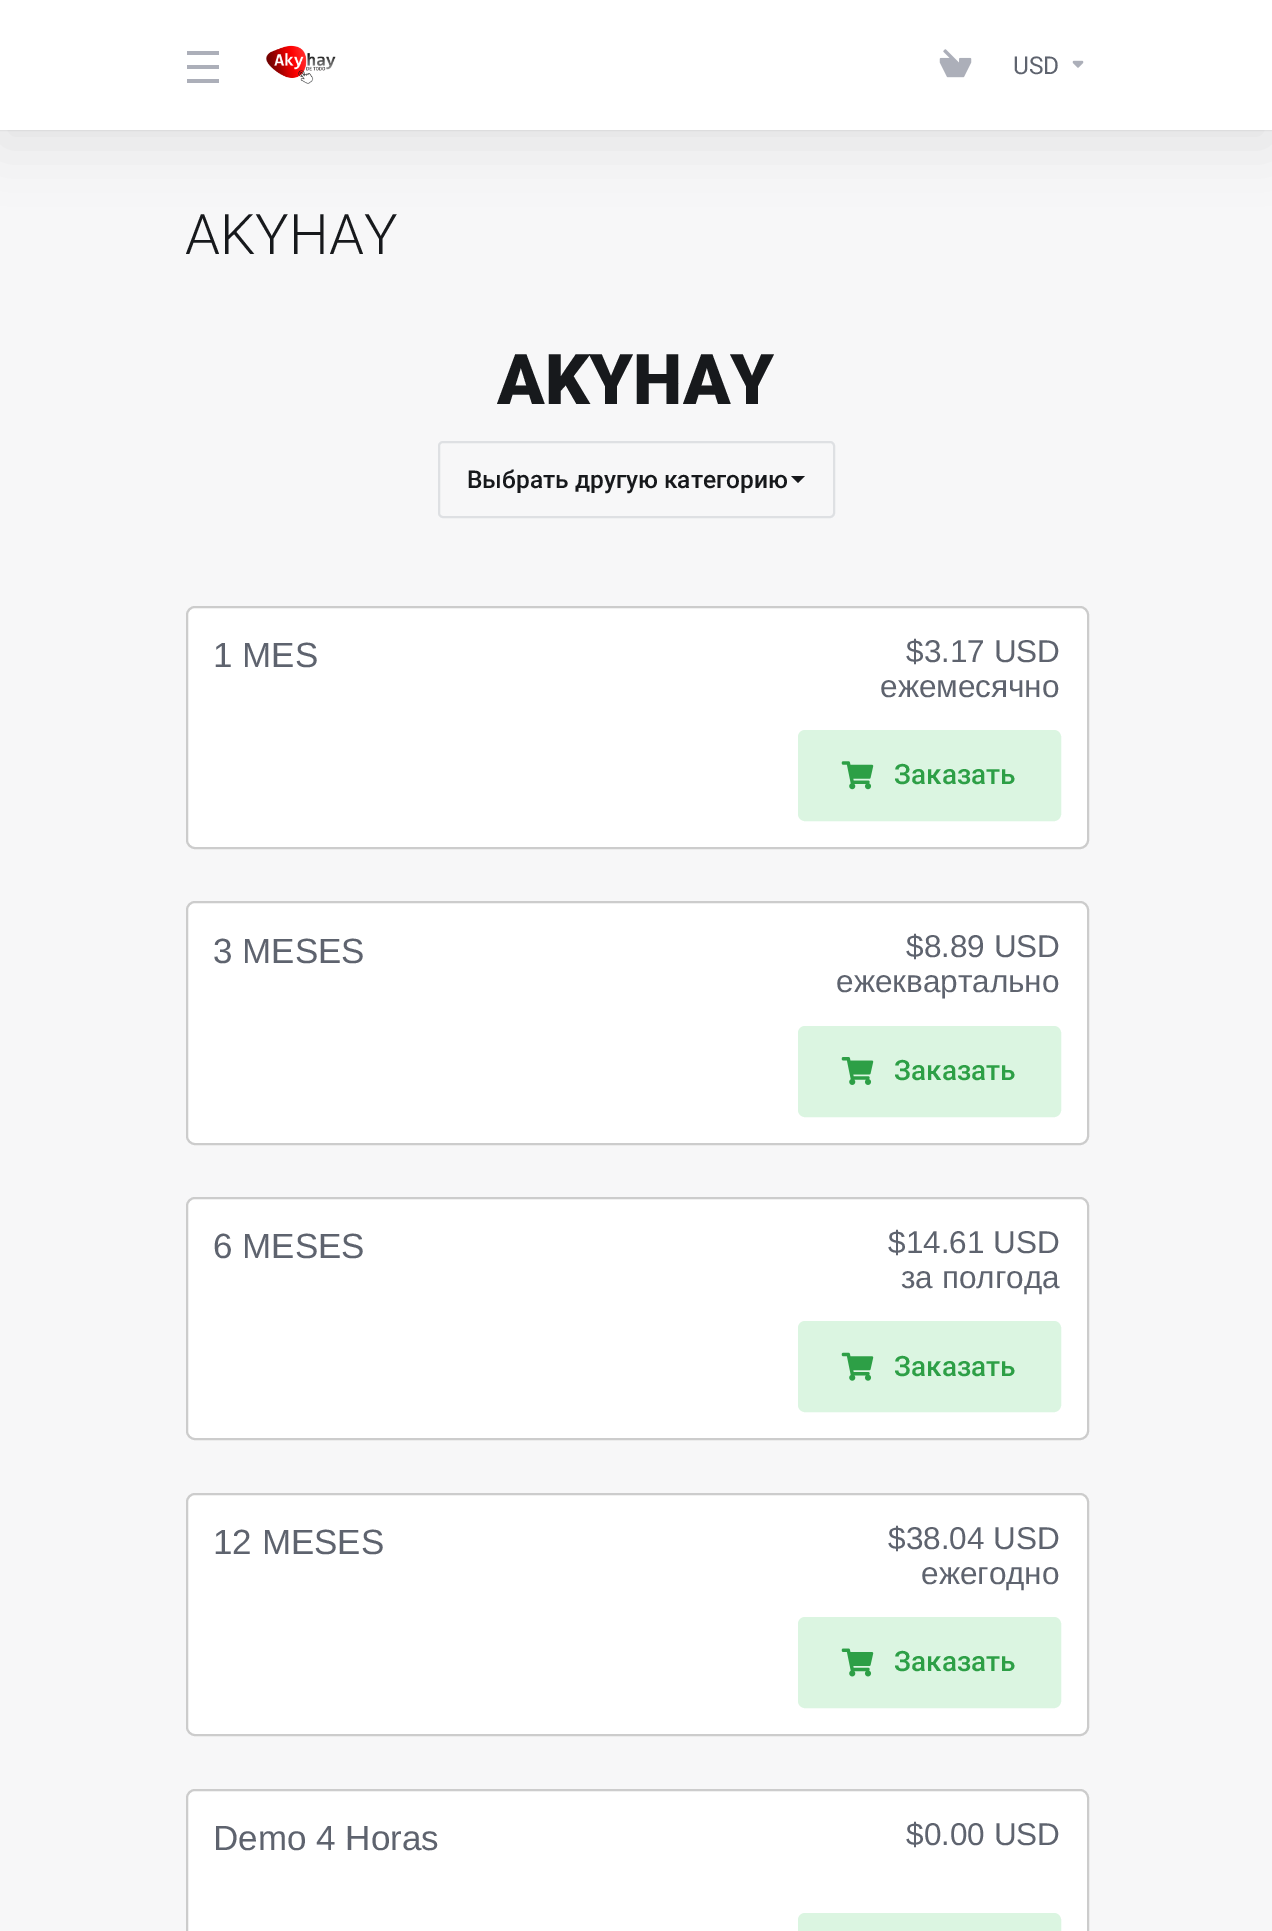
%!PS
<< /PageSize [1272 1931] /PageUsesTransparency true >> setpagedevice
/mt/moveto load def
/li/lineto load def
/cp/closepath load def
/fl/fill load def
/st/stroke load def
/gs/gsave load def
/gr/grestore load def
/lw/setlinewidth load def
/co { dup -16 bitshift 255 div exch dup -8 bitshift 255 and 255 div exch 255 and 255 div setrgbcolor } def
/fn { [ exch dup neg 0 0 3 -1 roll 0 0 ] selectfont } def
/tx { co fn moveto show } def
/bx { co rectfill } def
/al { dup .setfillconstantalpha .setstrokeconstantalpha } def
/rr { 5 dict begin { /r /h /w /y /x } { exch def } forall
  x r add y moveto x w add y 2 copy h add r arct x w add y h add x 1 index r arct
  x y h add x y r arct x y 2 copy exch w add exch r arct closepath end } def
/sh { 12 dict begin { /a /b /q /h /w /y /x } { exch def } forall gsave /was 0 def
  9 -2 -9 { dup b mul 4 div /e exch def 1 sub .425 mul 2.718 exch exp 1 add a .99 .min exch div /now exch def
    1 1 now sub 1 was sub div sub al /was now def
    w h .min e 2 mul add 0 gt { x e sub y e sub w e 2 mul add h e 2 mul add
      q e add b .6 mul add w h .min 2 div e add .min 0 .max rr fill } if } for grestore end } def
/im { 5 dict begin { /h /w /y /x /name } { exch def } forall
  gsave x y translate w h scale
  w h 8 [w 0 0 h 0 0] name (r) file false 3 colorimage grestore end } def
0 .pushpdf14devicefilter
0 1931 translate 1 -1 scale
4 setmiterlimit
0 0 1272 1931 16#F7F7F8 bx
16#000000 co
0 14 1272 130 0 28 .08 sh
0 0 1272 130 0 1 .12 sh
0 0 1272 130 16#FFFFFF bx
187 51 32 4 16#ACAFB9 bx
187 65 32 4 16#ACAFB9 bx
187 79 32 4 16#ACAFB9 bx
(media/1.raw) 266 45 70 39 im
(media/2.raw) 939 49 33 29 im
(media/3.raw) 1072 60 12 8 im
16#DEE0E3 co
2 lw
439 442 395 75 4 rr st
16#17191C co
791 476 mt 805 476 li 798 483 li cp fl
16#FFFFFF co
187 607 901 241 8 rr gs fl gr
16#CCCCCC co
st
16#DBF5E1 co
799 731 261 89 6 rr gs fl gr
st
(media/4.raw) 841 761 33 29 im
16#FFFFFF co
187 902 901 242 8 rr gs fl gr
16#CCCCCC co
st
16#DBF5E1 co
799 1027 261 89 6 rr gs fl gr
st
(media/5.raw) 841 1057 33 28 im
16#FFFFFF co
187 1198 901 241 8 rr gs fl gr
16#CCCCCC co
st
16#DBF5E1 co
799 1322 261 89 6 rr gs fl gr
st
(media/6.raw) 841 1352 33 29 im
16#FFFFFF co
187 1494 901 241 8 rr gs fl gr
16#CCCCCC co
st
16#DBF5E1 co
799 1618 261 89 6 rr gs fl gr
st
(media/7.raw) 841 1648 33 29 im
16#FFFFFF co
187 1790 901 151 8 rr gs fl gr
16#CCCCCC co
st
16#DBF5E1 co
799 1914 261 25 6 rr gs fl gr
st
(USD) 1013 74 /Roboto-Regular 24.5 16#5E636E tx
(AKYHAY) 185 254 /Roboto-Light 56 16#17191C tx
(AKYHAY) 497 404 /Roboto-Black 70 16#17191C tx
(Выбрать другую категорию) 467 488 /Roboto-Medium 24.5 16#17191C tx
(1 MES) 213 667 /LiberationSans-Regular 35 16#5E636E tx
($3.17 USD) 906 662 /LiberationSans-Regular 31.5 16#5E636E tx
(ежемесячно) 880 697 /LiberationSans-Regular 31.5 16#5E636E tx
(Заказать) 894 784 /Roboto-Medium 28 16#2D9F46 tx
(3 MESES) 213 963 /LiberationSans-Regular 35 16#5E636E tx
($8.89 USD) 906 957 /LiberationSans-Regular 31.5 16#5E636E tx
(ежеквартально) 836 992 /LiberationSans-Regular 31.5 16#5E636E tx
(Заказать) 894 1080 /Roboto-Medium 28 16#2D9F46 tx
(6 MESES) 213 1258 /LiberationSans-Regular 35 16#5E636E tx
($14.61 USD) 888 1253 /LiberationSans-Regular 31.5 16#5E636E tx
(за полгода) 901 1288 /LiberationSans-Regular 31.5 16#5E636E tx
(Заказать) 894 1376 /Roboto-Medium 28 16#2D9F46 tx
(12 MESES) 213 1554 /LiberationSans-Regular 35 16#5E636E tx
($38.04 USD) 888 1549 /LiberationSans-Regular 31.5 16#5E636E tx
(ежегодно) 921 1584 /LiberationSans-Regular 31.5 16#5E636E tx
(Заказать) 894 1671 /Roboto-Medium 28 16#2D9F46 tx
(Demo 4 Horas) 213 1850 /LiberationSans-Regular 35 16#5E636E tx
($0.00 USD) 906 1845 /LiberationSans-Regular 31.5 16#5E636E tx
.poppdf14devicefilter showpage
